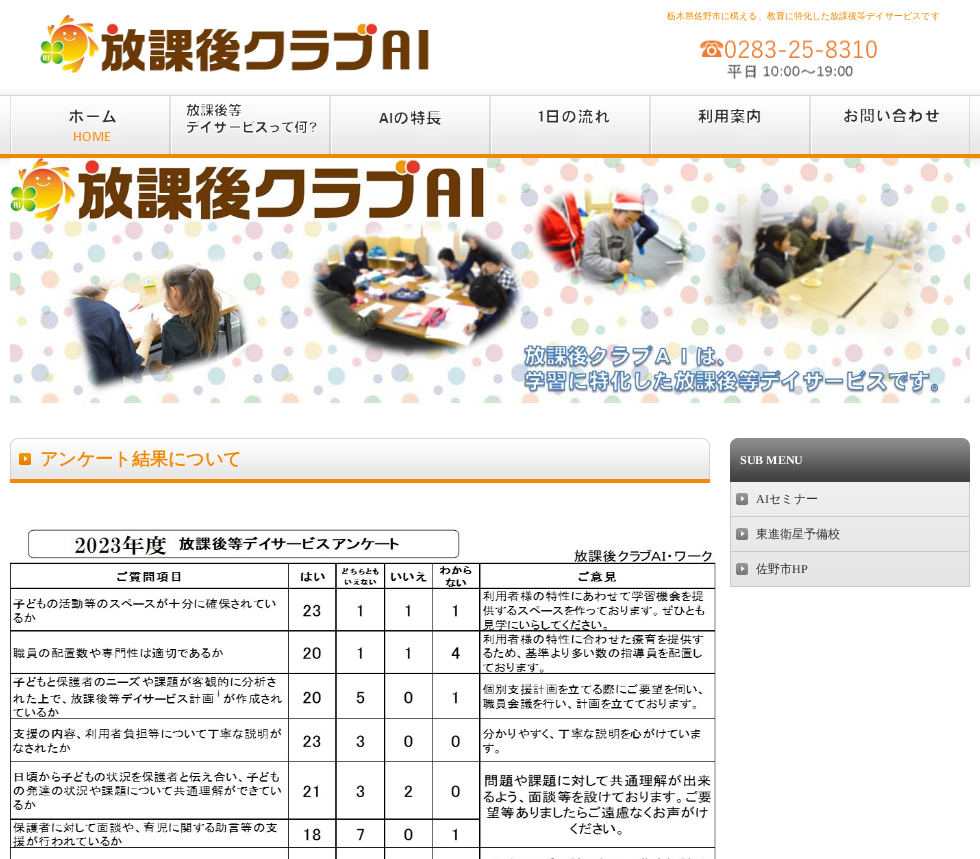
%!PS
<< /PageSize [980 859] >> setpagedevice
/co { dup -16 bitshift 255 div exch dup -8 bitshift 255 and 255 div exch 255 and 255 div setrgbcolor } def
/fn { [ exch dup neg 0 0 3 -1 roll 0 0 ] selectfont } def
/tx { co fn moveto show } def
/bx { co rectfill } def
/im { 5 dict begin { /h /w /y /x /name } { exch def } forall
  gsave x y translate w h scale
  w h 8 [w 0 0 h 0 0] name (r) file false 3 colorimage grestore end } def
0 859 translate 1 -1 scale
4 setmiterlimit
0 0 980 859 16#FFFFFF bx
(media/1.raw) 0 89 980 76 im
(media/2.raw) 40 15 59 58 im
(media/3.raw) 101 22 329 51 im
(media/4.raw) 700 40 177 40 im
(media/5.raw) 10 96 160 58 im
(media/6.raw) 170 96 160 58 im
(media/7.raw) 330 96 160 58 im
(media/8.raw) 490 96 160 58 im
(media/9.raw) 650 96 160 58 im
(media/10.raw) 810 96 160 58 im
(media/11.raw) 10 158 960 250 im
(media/12.raw) 10 438 700 45 im
(media/13.raw) 10 528 706 331 im
730 476 240 6 16#434343 bx
(media/14.raw) 730 438 240 38 im
(media/15.raw) 731 482 238 104 im
(media/16.raw) 736 493 12 12 im
969 482 1 105 16#C9C9C9 bx
730 516 240 1 16#C9C9C9 bx
730 482 1 35 16#C9C9C9 bx
(media/16.raw) 736 528 12 12 im
730 551 240 1 16#C9C9C9 bx
730 517 1 35 16#C9C9C9 bx
(media/16.raw) 736 563 12 12 im
730 586 240 1 16#C9C9C9 bx
730 552 1 35 16#C9C9C9 bx
(栃木県佐野市に構える、教育に特化した放課後等デイサービスです) 667 19 /WenQuanYiZenHei-Medium 9 16#F08800 tx
(アンケート結果について) 40 465 /WenQuanYiZenHei-Bold 18 16#F08800 tx
(SUB MENU) 740 464 /LiberationSerif-Bold 12 16#FFFFFF tx
(AI) 756 503 /LiberationSerif-Regular 12 16#333333 tx
(セミナー) 769 503 /WenQuanYiZenHei-Medium 12 16#333333 tx
(東進衛星予備校) 756 538 /WenQuanYiZenHei-Medium 12 16#333333 tx
(佐野市) 756 573 /WenQuanYiZenHei-Medium 12 16#333333 tx
(HP) 792 573 /LiberationSerif-Regular 12 16#333333 tx
showpage
